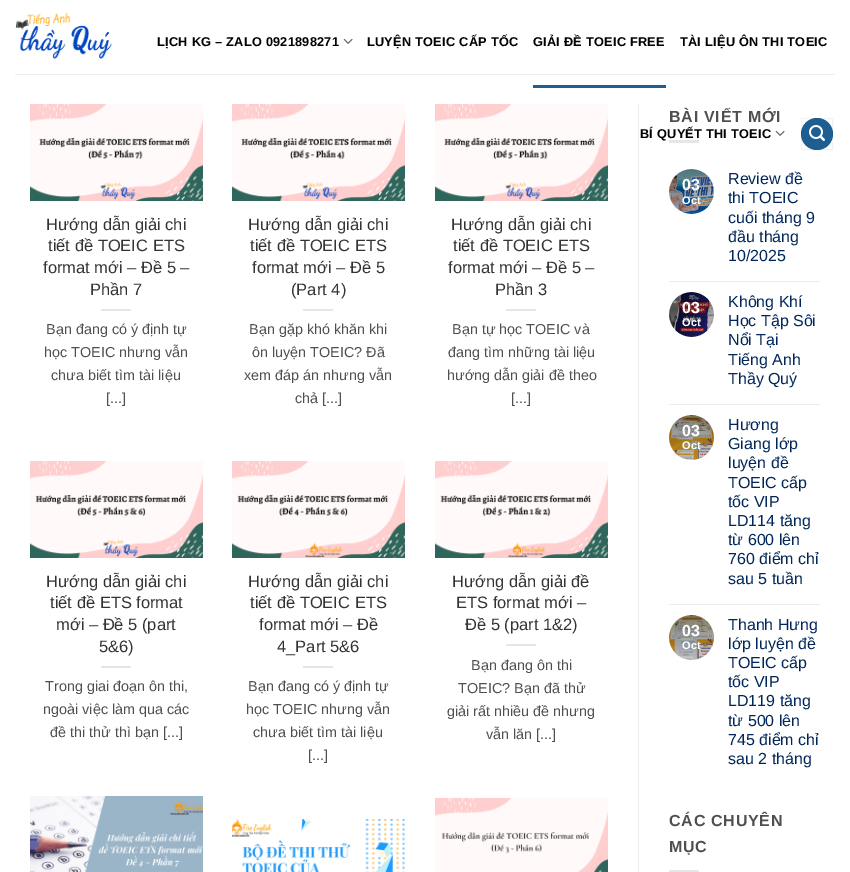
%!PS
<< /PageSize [850 872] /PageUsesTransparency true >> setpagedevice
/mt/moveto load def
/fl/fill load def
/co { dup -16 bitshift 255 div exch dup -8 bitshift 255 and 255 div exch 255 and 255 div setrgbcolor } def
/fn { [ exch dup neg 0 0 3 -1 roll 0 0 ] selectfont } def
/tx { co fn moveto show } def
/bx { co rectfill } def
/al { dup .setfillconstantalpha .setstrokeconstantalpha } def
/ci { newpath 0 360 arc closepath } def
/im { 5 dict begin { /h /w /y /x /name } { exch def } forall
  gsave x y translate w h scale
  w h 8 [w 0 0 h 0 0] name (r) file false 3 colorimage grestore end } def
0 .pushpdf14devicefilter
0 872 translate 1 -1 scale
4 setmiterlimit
0 0 850 872 16#FFFFFF bx
(media/1.raw) 15 12 97 47 im
(media/2.raw) 343 38 10 6 im
533 85 133 3 16#1E5E91 bx
(media/2.raw) 775 130 10 6 im
817 134 16 ci fl
0.05 al
16#000000 co
801.5 118.5 31 31 rectstroke
1 al
(media/3.raw) 809 125 16 16 im
15 74 820 1 16#EDEDED bx
(media/4.raw) 30 104 173 97 im
101 309 30 2 16#E6E6E6 bx
(media/5.raw) 232 104 173 97 im
303 309 30 2 16#E6E6E6 bx
(media/6.raw) 435 104 173 97 im
506 309 30 2 16#E6E6E6 bx
(media/7.raw) 30 461 173 97 im
101 666 30 2 16#E6E6E6 bx
(media/8.raw) 232 461 173 97 im
303 666 30 2 16#E6E6E6 bx
(media/9.raw) 435 461 173 97 im
506 644 30 2 16#E6E6E6 bx
(media/10.raw) 30 796 173 76 im
(media/11.raw) 232 819 173 53 im
(media/12.raw) 435 798 173 74 im
638 104 1 768 16#ECECEC bx
669 140 30 3 16#E6E6E6 bx
(media/13.raw) 669 169 45 45 im
669 281 151 1 16#ECECEC bx
(media/14.raw) 669 292 45 45 im
669 404 151 1 16#ECECEC bx
(media/15.raw) 669 415 45 45 im
669 604 151 1 16#ECECEC bx
(media/16.raw) 669 615 45 45 im
669 870 30 2 16#E6E6E6 bx
/LiberationSans-Bold 12.75 fn
16#000000 co
157 46 mt .25 0 (LỊCH KG – ZALO 0921898271) ashow
367 46 mt .25 0 (LUYỆN TOEIC CẤP TỐC) ashow
533 46 mt .25 0 (GIẢI ĐỀ TOEIC FREE) ashow
680 46 mt .25 0 (TÀI LIỆU ÔN THI TOEIC) ashow
640 138 mt .25 0 (BÍ QUYẾT THI TOEIC) ashow
(Hướng dẫn giải chi) 46 230 /LiberationSans-Regular 16.5 16#333333 tx
(tiết đề TOEIC ETS) 48 251 /LiberationSans-Regular 16.5 16#333333 tx
(format mới – Đề 5 –) 43 273 /LiberationSans-Regular 16.5 16#333333 tx
(Phần 7) 90 295 /LiberationSans-Regular 16.5 16#333333 tx
(Bạn đang có ý định tự) 46 334 /LiberationSans-Regular 14.4 16#4F4F4F tx
(học TOEIC nhưng vẫn) 44 357 /LiberationSans-Regular 14.4 16#4F4F4F tx
(chưa biết tìm tài liệu) 51 380 /LiberationSans-Regular 14.4 16#4F4F4F tx
([...]) 106 403 /LiberationSans-Regular 14.4 16#4F4F4F tx
(Hướng dẫn giải chi) 248 230 /LiberationSans-Regular 16.5 16#333333 tx
(tiết đề TOEIC ETS) 250 251 /LiberationSans-Regular 16.5 16#333333 tx
(format mới – Đề 5) 252 273 /LiberationSans-Regular 16.5 16#333333 tx
(\(Part 4\)) 291 295 /LiberationSans-Regular 16.5 16#333333 tx
(Bạn gặp khó khăn khi) 249 334 /LiberationSans-Regular 14.4 16#4F4F4F tx
(ôn luyện TOEIC? Đã) 252 357 /LiberationSans-Regular 14.4 16#4F4F4F tx
(xem đáp án nhưng vẫn) 244 380 /LiberationSans-Regular 14.4 16#4F4F4F tx
(chả [...]) 295 403 /LiberationSans-Regular 14.4 16#4F4F4F tx
(Hướng dẫn giải chi) 451 230 /LiberationSans-Regular 16.5 16#333333 tx
(tiết đề TOEIC ETS) 453 251 /LiberationSans-Regular 16.5 16#333333 tx
(format mới – Đề 5 –) 448 273 /LiberationSans-Regular 16.5 16#333333 tx
(Phần 3) 495 295 /LiberationSans-Regular 16.5 16#333333 tx
(Bạn tự học TOEIC và) 452 334 /LiberationSans-Regular 14.4 16#4F4F4F tx
(đang tìm những tài liệu) 448 357 /LiberationSans-Regular 14.4 16#4F4F4F tx
(hướng dẫn giải đề theo) 447 380 /LiberationSans-Regular 14.4 16#4F4F4F tx
([...]) 511 403 /LiberationSans-Regular 14.4 16#4F4F4F tx
(Hướng dẫn giải chi) 46 587 /LiberationSans-Regular 16.5 16#333333 tx
(tiết đề ETS format) 50 608 /LiberationSans-Regular 16.5 16#333333 tx
(mới – Đề 5 \(part) 56 630 /LiberationSans-Regular 16.5 16#333333 tx
(5&6\)) 99 652 /LiberationSans-Regular 16.5 16#333333 tx
(Trong giai đoạn ôn thi,) 45 691 /LiberationSans-Regular 14.4 16#4F4F4F tx
(ngoài việc làm qua các) 43 714 /LiberationSans-Regular 14.4 16#4F4F4F tx
(đề thi thử thì bạn [...]) 50 737 /LiberationSans-Regular 14.4 16#4F4F4F tx
(Hướng dẫn giải chi) 248 587 /LiberationSans-Regular 16.5 16#333333 tx
(tiết đề TOEIC ETS) 250 608 /LiberationSans-Regular 16.5 16#333333 tx
(format mới – Đề) 259 630 /LiberationSans-Regular 16.5 16#333333 tx
(4_Part 5&6) 277 652 /LiberationSans-Regular 16.5 16#333333 tx
(Bạn đang có ý định tự) 248 691 /LiberationSans-Regular 14.4 16#4F4F4F tx
(học TOEIC nhưng vẫn) 246 714 /LiberationSans-Regular 14.4 16#4F4F4F tx
(chưa biết tìm tài liệu) 253 737 /LiberationSans-Regular 14.4 16#4F4F4F tx
([...]) 308 760 /LiberationSans-Regular 14.4 16#4F4F4F tx
(Hướng dẫn giải đề) 452 587 /LiberationSans-Regular 16.5 16#333333 tx
(ETS format mới –) 456 608 /LiberationSans-Regular 16.5 16#333333 tx
(Đề 5 \(part 1&2\)) 465 630 /LiberationSans-Regular 16.5 16#333333 tx
(Bạn đang ôn thi) 471 670 /LiberationSans-Regular 14.4 16#4F4F4F tx
(TOEIC? Bạn đã thử) 458 693 /LiberationSans-Regular 14.4 16#4F4F4F tx
(giải rất nhiều đề nhưng) 447 716 /LiberationSans-Regular 14.4 16#4F4F4F tx
(vẫn lăn [...]) 486 739 /LiberationSans-Regular 14.4 16#4F4F4F tx
/LiberationSans-Bold 16 fn
669 122 mt .75 0 (BÀI VIẾT MỚI) ashow
(03) 682 190 /LiberationSans-Bold 16 16#FFFFFF tx
(Oct) 682 204 /LiberationSans-Bold 11 16#FFFFFF tx
(Review đề) 728 184 /LiberationSans-Regular 16 16#00265A tx
(thi TOEIC) 728 203 /LiberationSans-Regular 16 16#00265A tx
(cuối tháng 9) 728 223 /LiberationSans-Regular 16 16#00265A tx
(đầu tháng) 728 242 /LiberationSans-Regular 16 16#00265A tx
(10/2025) 728 261 /LiberationSans-Regular 16 16#00265A tx
(03) 682 313 /LiberationSans-Bold 16 16#FFFFFF tx
(Oct) 682 326 /LiberationSans-Bold 11 16#FFFFFF tx
(Không Khí) 728 307 /LiberationSans-Regular 16 16#00265A tx
(Học Tập Sôi) 728 326 /LiberationSans-Regular 16 16#00265A tx
(Nổi Tại) 728 345 /LiberationSans-Regular 16 16#00265A tx
(Tiếng Anh) 728 365 /LiberationSans-Regular 16 16#00265A tx
(Thầy Quý) 728 384 /LiberationSans-Regular 16 16#00265A tx
(03) 682 436 /LiberationSans-Bold 16 16#FFFFFF tx
(Oct) 682 449 /LiberationSans-Bold 11 16#FFFFFF tx
(Hương) 728 430 /LiberationSans-Regular 16 16#00265A tx
(Giang lớp) 728 449 /LiberationSans-Regular 16 16#00265A tx
(luyện đề) 728 468 /LiberationSans-Regular 16 16#00265A tx
(TOEIC cấp) 728 488 /LiberationSans-Regular 16 16#00265A tx
(tốc VIP) 728 507 /LiberationSans-Regular 16 16#00265A tx
(LD114 tăng) 728 526 /LiberationSans-Regular 16 16#00265A tx
(từ 600 lên) 728 545 /LiberationSans-Regular 16 16#00265A tx
(760 điểm chỉ) 728 564 /LiberationSans-Regular 16 16#00265A tx
(sau 5 tuần) 728 584 /LiberationSans-Regular 16 16#00265A tx
(03) 682 636 /LiberationSans-Bold 16 16#FFFFFF tx
(Oct) 682 649 /LiberationSans-Bold 11 16#FFFFFF tx
(Thanh Hưng) 728 630 /LiberationSans-Regular 16 16#00265A tx
(lớp luyện đề) 728 649 /LiberationSans-Regular 16 16#00265A tx
(TOEIC cấp) 728 668 /LiberationSans-Regular 16 16#00265A tx
(tốc VIP) 728 687 /LiberationSans-Regular 16 16#00265A tx
(LD119 tăng) 728 706 /LiberationSans-Regular 16 16#00265A tx
(từ 500 lên) 728 726 /LiberationSans-Regular 16 16#00265A tx
(745 điểm chỉ) 728 745 /LiberationSans-Regular 16 16#00265A tx
(sau 2 tháng) 728 764 /LiberationSans-Regular 16 16#00265A tx
/LiberationSans-Bold 16 fn
16#4F4F4F co
669 826 mt .75 0 (CÁC CHUYÊN) ashow
669 852 mt .75 0 (MỤC) ashow
.poppdf14devicefilter showpage
